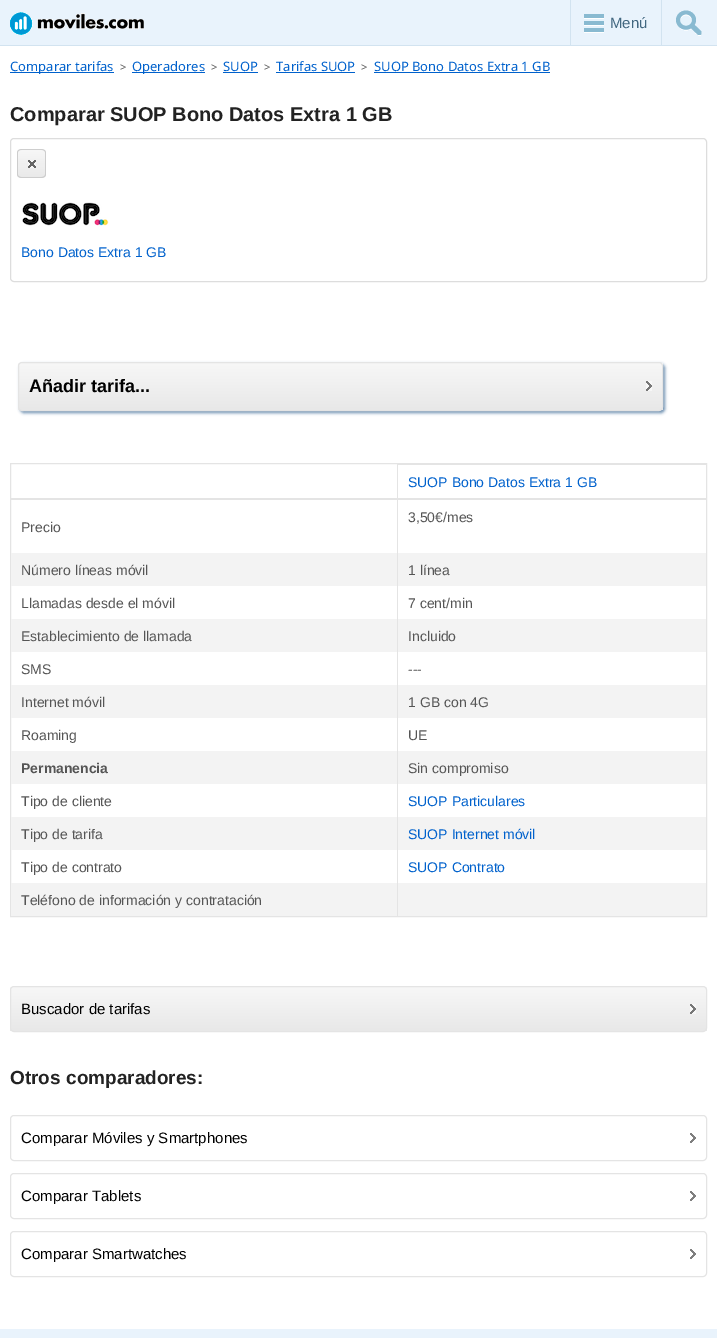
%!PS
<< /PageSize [717 1338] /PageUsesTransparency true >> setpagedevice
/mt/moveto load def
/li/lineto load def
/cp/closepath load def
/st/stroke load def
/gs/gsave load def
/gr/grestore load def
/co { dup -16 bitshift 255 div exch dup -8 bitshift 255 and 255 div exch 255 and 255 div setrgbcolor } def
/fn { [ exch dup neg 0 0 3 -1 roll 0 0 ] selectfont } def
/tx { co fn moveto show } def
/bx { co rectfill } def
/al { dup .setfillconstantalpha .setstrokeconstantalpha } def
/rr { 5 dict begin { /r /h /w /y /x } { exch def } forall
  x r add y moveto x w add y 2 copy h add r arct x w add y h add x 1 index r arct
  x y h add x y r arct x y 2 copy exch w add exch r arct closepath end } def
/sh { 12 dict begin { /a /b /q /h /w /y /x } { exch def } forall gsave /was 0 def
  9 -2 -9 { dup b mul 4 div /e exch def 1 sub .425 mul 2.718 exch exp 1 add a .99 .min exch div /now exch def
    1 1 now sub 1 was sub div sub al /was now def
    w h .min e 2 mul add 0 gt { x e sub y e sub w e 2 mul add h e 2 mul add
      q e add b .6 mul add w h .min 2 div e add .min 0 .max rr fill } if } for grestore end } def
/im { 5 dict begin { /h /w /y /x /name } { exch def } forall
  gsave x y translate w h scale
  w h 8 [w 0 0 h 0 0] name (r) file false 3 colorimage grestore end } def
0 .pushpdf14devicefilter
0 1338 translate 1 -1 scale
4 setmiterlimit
0 0 717 1338 16#FFFFFF bx
0 0 717 45 16#E9F3FC bx
0 45 717 1 16#D2E3F0 bx
(media/1.raw) 10 12 134 23 im
661 0 1 46 16#D2E3F0 bx
570 0 1 46 16#D2E3F0 bx
(media/2.raw) 584 14 20 19 im
(media/3.raw) 676 10 26 26 im
10 72 104 1 16#0061CC bx
132 72 73 1 16#0061CC bx
223 72 35 1 16#0061CC bx
276 72 79 1 16#0061CC bx
374 72 176 1 16#0061CC bx
16#DDDDDD co
10.5 138.5 696 143 3.5 rr st
(media/4.raw) 17 149 29 29 im
(media/5.raw) 22 202 87 24 im
16#7090B0 co
20 364 645 49 4 1.5 1 sh
gs
18 362 645 49 4 rr clip newpath
gs 18 363 mt 663 363 li 663 410 li 18 410 li cp clip newpath
<< /ShadingType 2 /ColorSpace /DeviceRGB /Coords [341 363 341 410] /Extend [true true] /Function << /FunctionType 2 /Domain [0 1] /C0 [.969 .969 .969] /C1 [.91 .91 .91] /N 1 >> >> shfill gr
gr
16#E4E4E4 co
18.5 362.5 644 48 3.5 rr st
(media/6.raw) 646 381 6 10 im
10.5 463.5 696 453 rectstroke
397 464 1 452 16#E4E4E4 bx
11 498 387 2 16#E4E4E4 bx
398 464 308 1 16#E4E4E4 bx
398 498 308 2 16#E4E4E4 bx
11 553 386 33 16#F3F3F3 bx
398 553 308 33 16#F3F3F3 bx
11 619 386 33 16#F3F3F3 bx
398 619 308 33 16#F3F3F3 bx
11 685 386 33 16#F3F3F3 bx
398 685 308 33 16#F3F3F3 bx
11 751 386 33 16#F3F3F3 bx
398 751 308 33 16#F3F3F3 bx
11 817 386 33 16#F3F3F3 bx
398 817 308 33 16#F3F3F3 bx
11 883 386 33 16#F3F3F3 bx
398 883 308 33 16#F3F3F3 bx
gs
10 986 697 46 4 rr clip newpath
gs 10 987 mt 707 987 li 707 1031 li 10 1031 li cp clip newpath
<< /ShadingType 2 /ColorSpace /DeviceRGB /Coords [359 987 359 1031] /Extend [true true] /Function << /FunctionType 2 /Domain [0 1] /C0 [.969 .969 .969] /C1 [.91 .91 .91] /N 1 >> >> shfill gr
gr
16#E4E4E4 co
10.5 986.5 696 45 3.5 rr st
(media/7.raw) 690 1004 6 10 im
10.5 1115.5 696 45 3.5 rr st
(media/8.raw) 690 1133 6 10 im
10.5 1173.5 696 45 3.5 rr st
(media/8.raw) 690 1191 6 10 im
10.5 1231.5 696 45 3.5 rr st
(media/8.raw) 690 1249 6 10 im
0 1329 717 9 16#E9F3FC bx
(Menú) 610 28 /LiberationSans-Regular 15 16#426780 tx
(Comparar tarifas) 10 71 /NotoSans-Regular 13 16#0061CC tx
(>) 120 71 /NotoSans-Regular 11 16#555555 tx
(Operadores) 132 71 /NotoSans-Regular 13 16#0061CC tx
(>) 211 71 /NotoSans-Regular 11 16#555555 tx
(SUOP) 223 71 /NotoSans-Regular 13 16#0061CC tx
(>) 264 71 /NotoSans-Regular 11 16#555555 tx
(Tarifas SUOP) 276 71 /NotoSans-Regular 13 16#0061CC tx
(>) 361 71 /NotoSans-Regular 11 16#555555 tx
(SUOP Bono Datos Extra 1 GB) 374 71 /NotoSans-Regular 13 16#0061CC tx
(Comparar SUOP Bono Datos Extra 1 GB) 10 121 /LiberationSans-Bold 20 16#222222 tx
(Bono Datos Extra 1 GB) 21 257 /LiberationSans-Regular 14 16#0061CC tx
(Añadir tarifa...) 29 392 /LiberationSans-Bold 18 16#000000 tx
(SUOP Bono Datos Extra 1 GB) 408 487 /LiberationSans-Regular 14 16#0061CC tx
(3,50€/mes) 408 522 /LiberationSans-Regular 14 16#555555 tx
(Precio) 21 532 /LiberationSans-Regular 14 16#555555 tx
(Número líneas móvil) 21 575 /LiberationSans-Regular 14 16#555555 tx
(1 línea) 408 575 /LiberationSans-Regular 14 16#555555 tx
(Llamadas desde el móvil) 21 608 /LiberationSans-Regular 14 16#555555 tx
(7 cent/min) 408 608 /LiberationSans-Regular 14 16#555555 tx
(Establecimiento de llamada) 21 641 /LiberationSans-Regular 14 16#555555 tx
(Incluido) 408 641 /LiberationSans-Regular 14 16#555555 tx
(SMS) 21 674 /LiberationSans-Regular 14 16#555555 tx
(---) 408 674 /LiberationSans-Regular 14 16#555555 tx
(Internet móvil) 21 707 /LiberationSans-Regular 14 16#555555 tx
(1 GB con 4G) 408 707 /LiberationSans-Regular 14 16#555555 tx
(Roaming) 21 740 /LiberationSans-Regular 14 16#555555 tx
(UE) 408 740 /LiberationSans-Regular 14 16#555555 tx
(Permanencia) 21 773 /LiberationSans-Bold 14 16#555555 tx
(Sin compromiso) 408 773 /LiberationSans-Regular 14 16#555555 tx
(Tipo de cliente) 21 806 /LiberationSans-Regular 14 16#555555 tx
(SUOP Particulares) 408 806 /LiberationSans-Regular 14 16#0061CC tx
(Tipo de tarifa) 21 839 /LiberationSans-Regular 14 16#555555 tx
(SUOP Internet móvil) 408 839 /LiberationSans-Regular 14 16#0061CC tx
(Tipo de contrato) 21 872 /LiberationSans-Regular 14 16#555555 tx
(SUOP Contrato) 408 872 /LiberationSans-Regular 14 16#0061CC tx
(Teléfono de información y contratación) 21 905 /LiberationSans-Regular 14 16#555555 tx
(Buscador de tarifas) 21 1014 /LiberationSans-Regular 15 16#000000 tx
(Otros comparadores:) 10 1084 /LiberationSans-Bold 19 16#222222 tx
(Comparar Móviles y Smartphones) 21 1143 /LiberationSans-Regular 15 16#000000 tx
(Comparar Tablets) 21 1201 /LiberationSans-Regular 15 16#000000 tx
(Comparar Smartwatches) 21 1259 /LiberationSans-Regular 15 16#000000 tx
.poppdf14devicefilter showpage
